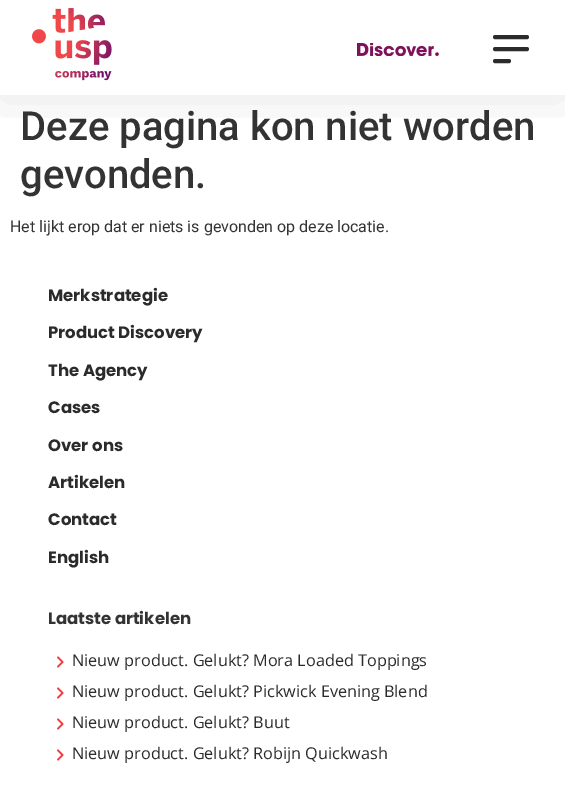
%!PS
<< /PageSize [565 790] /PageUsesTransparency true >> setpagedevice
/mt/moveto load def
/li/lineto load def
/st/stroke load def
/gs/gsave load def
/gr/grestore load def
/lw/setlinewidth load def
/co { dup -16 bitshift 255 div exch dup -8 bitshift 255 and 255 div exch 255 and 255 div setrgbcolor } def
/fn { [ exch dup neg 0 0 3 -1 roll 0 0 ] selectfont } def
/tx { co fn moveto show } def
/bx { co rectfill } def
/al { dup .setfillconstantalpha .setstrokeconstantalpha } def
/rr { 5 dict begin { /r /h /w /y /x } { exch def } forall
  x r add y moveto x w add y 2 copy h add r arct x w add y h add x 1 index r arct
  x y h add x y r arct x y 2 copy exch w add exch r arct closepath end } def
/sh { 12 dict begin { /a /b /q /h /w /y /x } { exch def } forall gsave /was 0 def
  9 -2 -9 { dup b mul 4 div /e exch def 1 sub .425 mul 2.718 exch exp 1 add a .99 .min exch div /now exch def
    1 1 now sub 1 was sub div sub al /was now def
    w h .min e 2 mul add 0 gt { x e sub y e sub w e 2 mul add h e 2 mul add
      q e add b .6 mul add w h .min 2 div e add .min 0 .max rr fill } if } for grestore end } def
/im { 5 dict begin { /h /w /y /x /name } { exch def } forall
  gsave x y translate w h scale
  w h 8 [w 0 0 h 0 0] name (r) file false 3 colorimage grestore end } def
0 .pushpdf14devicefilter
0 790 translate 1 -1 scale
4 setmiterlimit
0 0 565 790 16#FFFFFF bx
gs
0 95 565 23 rectclip
16#000000 co
0 4 565 95 0 25 .09 sh
gr
(media/1.raw) 32 8 80 73 im
(media/2.raw) 357 43 82 13 im
16#2B2B2B co
4 lw
1 setlinecap
1 setlinejoin
495 37 mt 527 37 li 495 49 mt 527 49 li 495 61 mt 509 61 li st
(media/3.raw) 57 656 7 12 im
(media/3.raw) 57 687 7 12 im
(media/3.raw) 57 718 7 12 im
(media/3.raw) 57 749 7 12 im
(Deze pagina kon niet worden) 20 140 /Roboto-Medium 40 16#333333 tx
(gevonden.) 20 188 /Roboto-Medium 40 16#333333 tx
(Het lijkt erop dat er niets is gevonden op deze locatie.) 10 232 /Roboto-Regular 16 16#333333 tx
(Merkstrategie) 48 301 /Poppins-Bold 16.5 16#2B2B2B tx
(Product Discovery) 48 338 /Poppins-Bold 16.5 16#2B2B2B tx
(The Agency) 48 376 /Poppins-Bold 16.5 16#2B2B2B tx
(Cases) 48 413 /Poppins-Bold 16.5 16#2B2B2B tx
(Over ons) 48 451 /Poppins-Bold 16.5 16#2B2B2B tx
(Artikelen) 48 488 /Poppins-Bold 16.5 16#2B2B2B tx
(Contact) 48 525 /Poppins-Bold 16.5 16#2B2B2B tx
(English) 48 563 /Poppins-Bold 16.5 16#2B2B2B tx
(Laatste artikelen) 48 624 /Poppins-Bold 16.5 16#333333 tx
(Nieuw product. Gelukt? Mora Loaded Toppings) 72 666 /OpenSans-Regular 16.25 16#2B2B2B tx
(Nieuw product. Gelukt? Pickwick Evening Blend) 72 697 /OpenSans-Regular 16.25 16#2B2B2B tx
(Nieuw product. Gelukt? Buut) 72 728 /OpenSans-Regular 16.25 16#2B2B2B tx
(Nieuw product. Gelukt? Robijn Quickwash) 72 759 /OpenSans-Regular 16.25 16#2B2B2B tx
.poppdf14devicefilter showpage
